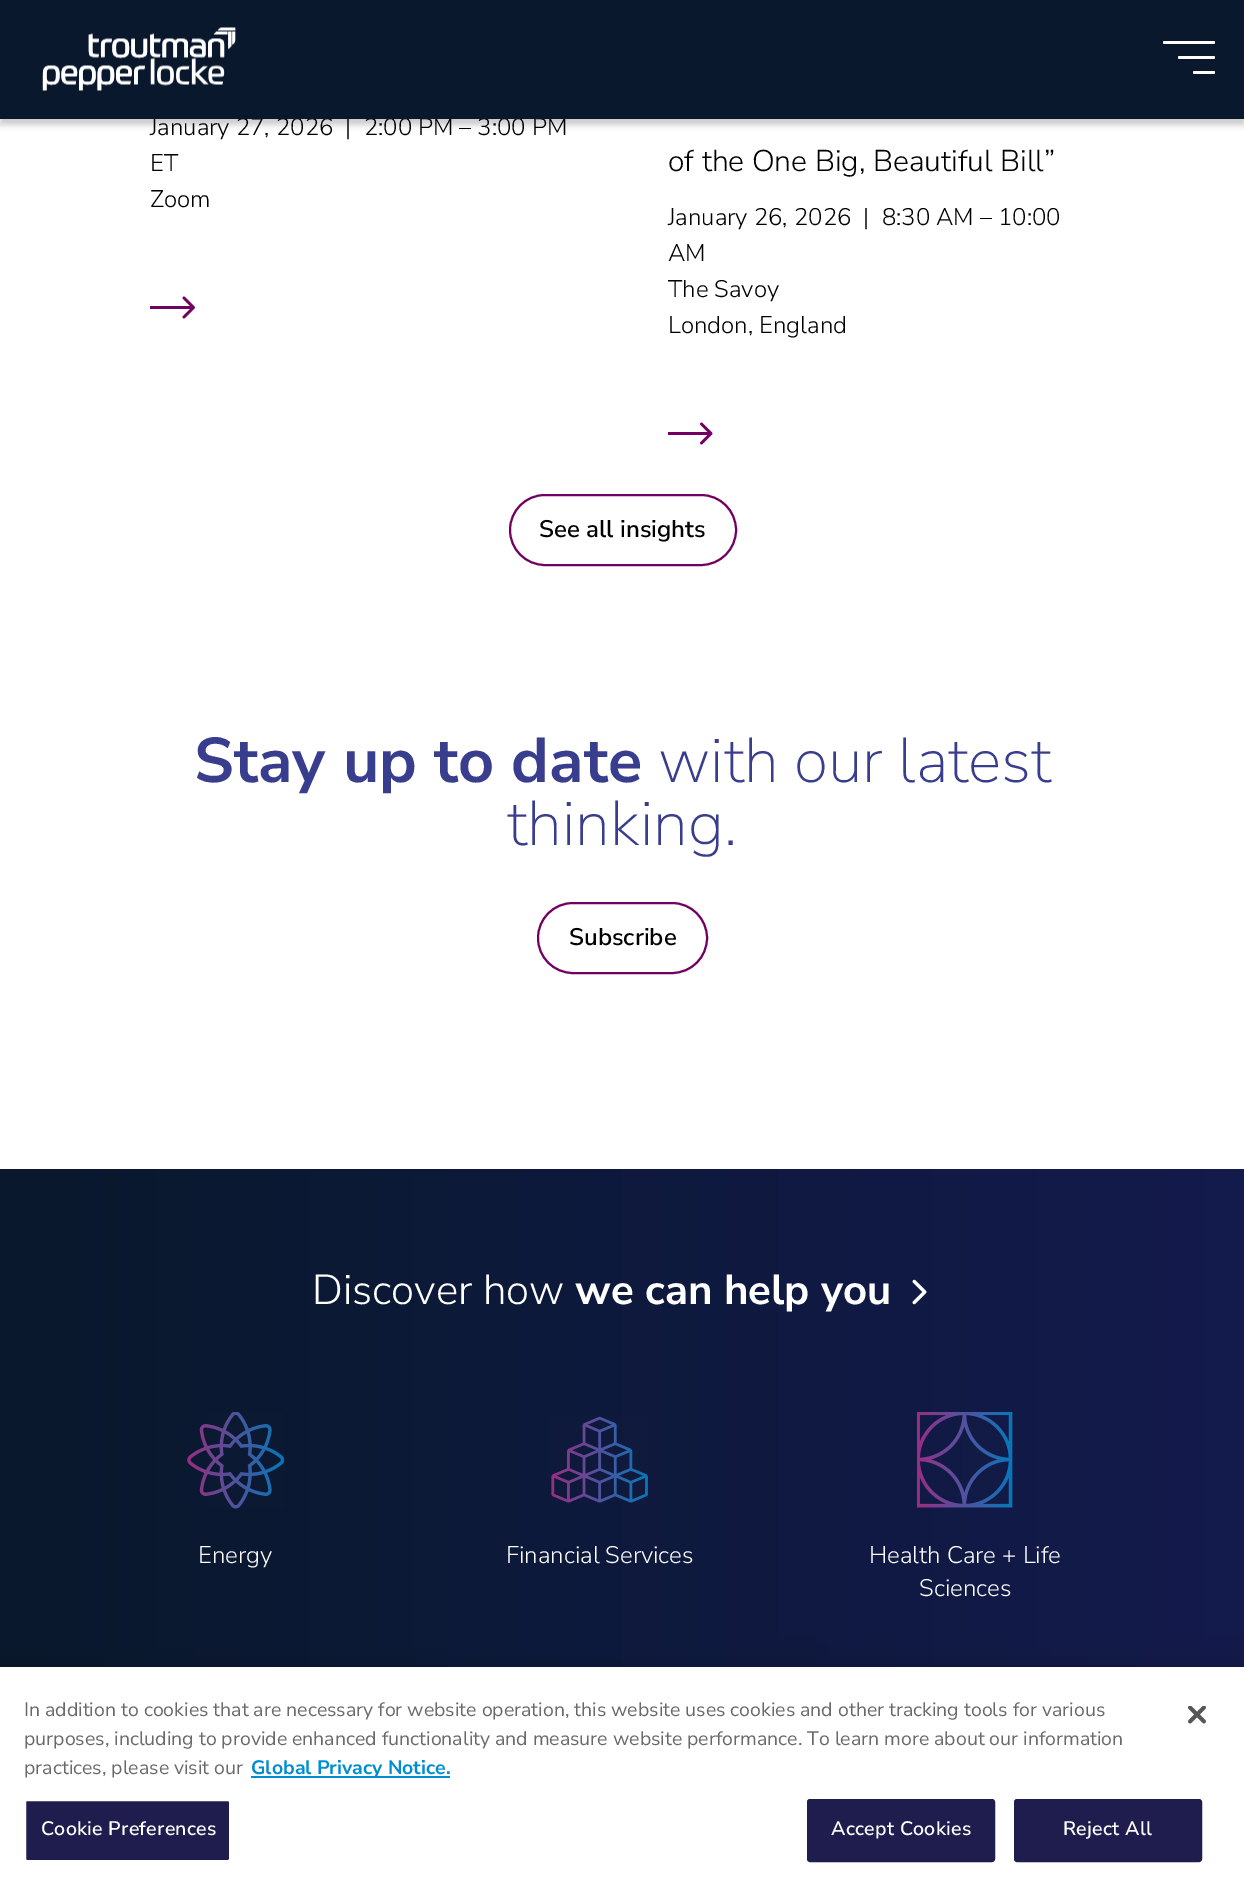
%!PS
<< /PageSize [1244 1894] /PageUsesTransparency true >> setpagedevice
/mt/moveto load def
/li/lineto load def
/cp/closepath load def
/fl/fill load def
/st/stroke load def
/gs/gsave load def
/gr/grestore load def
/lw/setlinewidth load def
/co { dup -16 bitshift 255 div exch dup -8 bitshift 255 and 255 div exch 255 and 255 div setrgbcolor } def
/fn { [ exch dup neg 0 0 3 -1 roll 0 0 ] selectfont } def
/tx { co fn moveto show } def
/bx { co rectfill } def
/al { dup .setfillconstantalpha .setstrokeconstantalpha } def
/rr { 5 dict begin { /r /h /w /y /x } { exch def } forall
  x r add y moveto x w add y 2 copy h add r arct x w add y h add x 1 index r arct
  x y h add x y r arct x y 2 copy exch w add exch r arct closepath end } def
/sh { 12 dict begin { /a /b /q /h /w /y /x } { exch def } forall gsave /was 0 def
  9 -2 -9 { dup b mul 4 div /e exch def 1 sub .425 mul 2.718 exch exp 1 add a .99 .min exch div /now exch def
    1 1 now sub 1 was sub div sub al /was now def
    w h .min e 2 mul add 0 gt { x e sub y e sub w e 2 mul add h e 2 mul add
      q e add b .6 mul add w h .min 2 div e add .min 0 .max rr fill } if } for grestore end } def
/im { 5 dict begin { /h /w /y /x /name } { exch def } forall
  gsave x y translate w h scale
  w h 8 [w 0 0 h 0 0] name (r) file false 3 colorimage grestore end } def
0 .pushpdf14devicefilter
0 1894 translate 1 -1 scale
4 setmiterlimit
0 0 1244 1894 16#FFFFFF bx
16#000000 co
0 6 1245 119 0 3 .2 sh
(media/2.raw) 150 296 45 23 im
(media/3.raw) 668 422 45 23 im
16#720062 co
2 lw
510 495 226 70 35 rr st
538 903 169 70 35 rr st
gs 0 1169 mt 1244 1169 li 1244 1667 li 0 1667 li cp clip newpath
<< /ShadingType 2 /ColorSpace /DeviceRGB /Coords [0 1766 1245 1766] /Extend [true true] /Function << /FunctionType 2 /Domain [0 1] /C0 [.035 .094 .173] /C1 [.078 .106 .302] /N 1 >> >> shfill gr
(media/4.raw) 912 1279 15 26 im
(media/5.raw) 187 1412 97 97 im
(media/6.raw) 551 1416 97 87 im
(media/7.raw) 917 1412 96 96 im
16#000000 co
0 1667 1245 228 0 13.5 .2 sh
0 1667 1244 227 16#FFFFFF bx
251 1776 199 2 16#008DD1 bx
16#1E1D4D co
25 1800 205 61 2 rr gs fl gr
16#FFFFFF co
st
16#1E1D4D co
808 1800 186 61 2 rr gs fl gr
st
1015 1800 186 61 2 rr gs fl gr
st
(media/8.raw) 1188 1706 18 18 im
(January 27, 2026  |  2:00 PM – 3:00 PM) 150 135 /NunitoSans-Light 24 16#000000 tx
0 0 1244 119 16#09182C bx
16#FFFFFF co
1193 71 22 3 1.5 rr fl
1178 56 37 3 1.5 rr fl
1163 41 52 3 1.5 rr fl
(media/1.raw) 42 27 194 64 im
(ET) 150 171 /NunitoSans-Light 24 16#000000 tx
(Zoom) 150 207 /NunitoSans-Light 24 16#000000 tx
(of the One Big, Beautiful Bill”) 668 171 /NunitoSans-Light 30 16#000000 tx
(January 26, 2026  |  8:30 AM – 10:00) 668 225 /NunitoSans-Light 24 16#000000 tx
(AM) 668 261 /NunitoSans-Light 24 16#000000 tx
(The Savoy) 668 297 /NunitoSans-Light 24 16#000000 tx
(London, England) 668 333 /NunitoSans-Light 24 16#000000 tx
(See all insights) 539 537 /NunitoSans-SemiBold 24 16#000000 tx
(Stay up to date) 194 782 /NunitoSans-Bold 63 16#393D8D tx
(with our latest) 658 782 /NunitoSans-ExtraLight 63 16#393D8D tx
(thinking.) 507 845 /NunitoSans-ExtraLight 63 16#393D8D tx
(Subscribe) 569 945 /NunitoSans-SemiBold 24 16#000000 tx
(Discover how) 312 1304 /NunitoSans-Light 42 16#FFFFFF tx
(we can help you) 575 1304 /NunitoSans-Bold 42 16#FFFFFF tx
(Energy) 198 1563 /NunitoSans-Light 24 16#FFFFFF tx
(Financial Services) 506 1563 /NunitoSans-Light 24 16#FFFFFF tx
(Health Care + Life) 869 1563 /NunitoSans-Light 24 16#FFFFFF tx
(Sciences) 919 1596 /NunitoSans-Light 24 16#FFFFFF tx
(In addition to cookies that are necessary for website operation, this website uses cookies and other tracking tools for various) 24 1716 /NunitoSans-Regular 19.5 16#696969 tx
(purposes, including to provide enhanced functionality and measure website performance. To learn more about our information) 24 1745 /NunitoSans-Regular 19.5 16#696969 tx
(practices, please visit our) 24 1774 /NunitoSans-Regular 19.5 16#696969 tx
(Global Privacy Notice.) 251 1774 /NunitoSans-Bold 19.5 16#008DD1 tx
/NunitoSans-SemiBold 19.5 fn
16#FFFFFF co
41 1835 mt .25 0 (Cookie Preferences) ashow
831 1835 mt .25 0 (Accept Cookies) ashow
1063 1835 mt .25 0 (Reject All) ashow
.poppdf14devicefilter showpage
